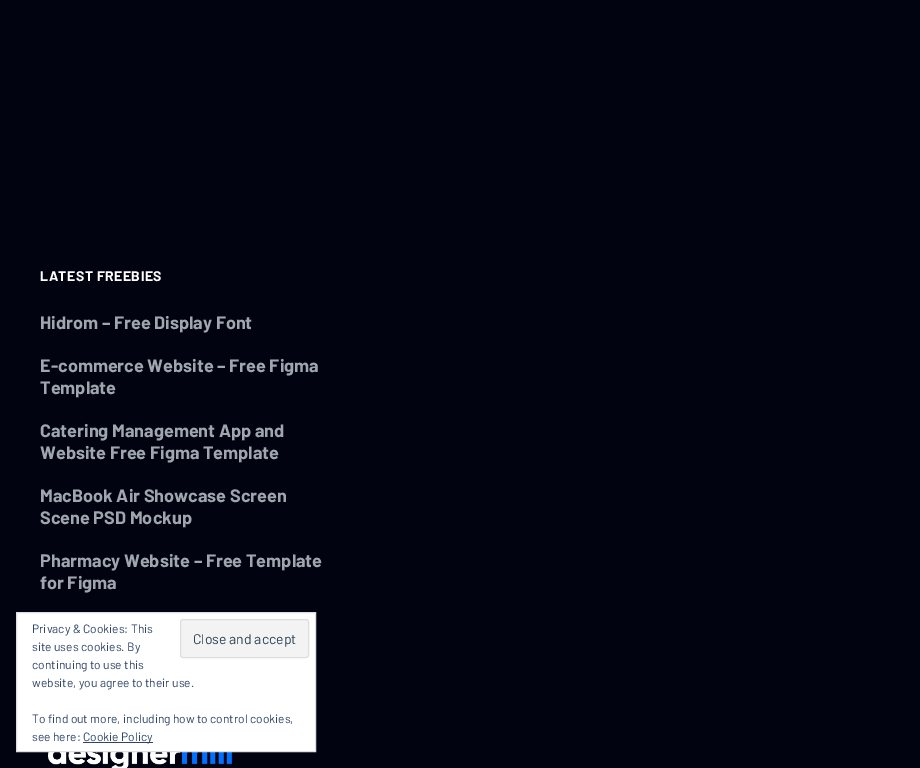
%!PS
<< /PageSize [920 768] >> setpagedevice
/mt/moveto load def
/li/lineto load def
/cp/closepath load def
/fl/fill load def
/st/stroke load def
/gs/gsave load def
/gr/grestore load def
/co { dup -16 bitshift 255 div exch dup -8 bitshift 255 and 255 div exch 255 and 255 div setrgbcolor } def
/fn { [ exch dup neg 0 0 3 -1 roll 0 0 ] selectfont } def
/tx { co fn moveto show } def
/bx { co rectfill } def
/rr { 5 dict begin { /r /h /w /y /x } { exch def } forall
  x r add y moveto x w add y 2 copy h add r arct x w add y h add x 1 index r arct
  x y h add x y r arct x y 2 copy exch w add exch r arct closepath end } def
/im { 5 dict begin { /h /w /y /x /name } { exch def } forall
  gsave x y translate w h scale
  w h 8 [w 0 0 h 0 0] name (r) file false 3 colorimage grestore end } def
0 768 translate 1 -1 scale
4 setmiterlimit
0 0 920 768 16#010311 bx
(media/1.raw) 48 752 184 16 im
16#FFFFFF co
16.5 612.5 mt 315.5 612.5 li 315.5 751.5 li 16.5 751.5 li cp gs fl gr
16#DEDEDE co
st
16#F3F3F3 co
180.5 619.5 128 38 2.5 rr gs fl gr
16#DEDEDE co
st
83 742 70 1 16#2E4467 bx
/Barlow-Bold 14 fn
16#FFFFFF co
40 281 mt .5 0 (LATEST FREEBIES) ashow
(Hidrom – Free Display Font) 40 329 /Barlow-Bold 18 16#9FA6AE tx
(E-commerce Website – Free Figma) 40 372 /Barlow-Bold 18 16#9FA6AE tx
(Template) 40 394 /Barlow-Bold 18 16#9FA6AE tx
(Catering Management App and) 40 437 /Barlow-Bold 18 16#9FA6AE tx
(Website Free Figma Template) 40 459 /Barlow-Bold 18 16#9FA6AE tx
(MacBook Air Showcase Screen) 40 502 /Barlow-Bold 18 16#9FA6AE tx
(Scene PSD Mockup) 40 524 /Barlow-Bold 18 16#9FA6AE tx
(Pharmacy Website – Free Template) 40 567 /Barlow-Bold 18 16#9FA6AE tx
(for Figma) 40 589 /Barlow-Bold 18 16#9FA6AE tx
(Privacy & Cookies: This) 32 633 /Barlow-Regular 12 16#2E4467 tx
(site uses cookies. By) 32 651 /Barlow-Regular 12 16#2E4467 tx
(Close and accept) 193 644 /Barlow-Regular 14 16#2E4453 tx
(continuing to use this) 32 669 /Barlow-Regular 12 16#2E4467 tx
(website, you agree to their use.) 32 687 /Barlow-Regular 12 16#2E4467 tx
(To find out more, including how to control cookies,) 32 723 /Barlow-Regular 12 16#2E4467 tx
(see here:) 32 741 /Barlow-Regular 12 16#2E4467 tx
(Cookie Policy) 83 741 /Barlow-Regular 12 16#2E4467 tx
showpage
